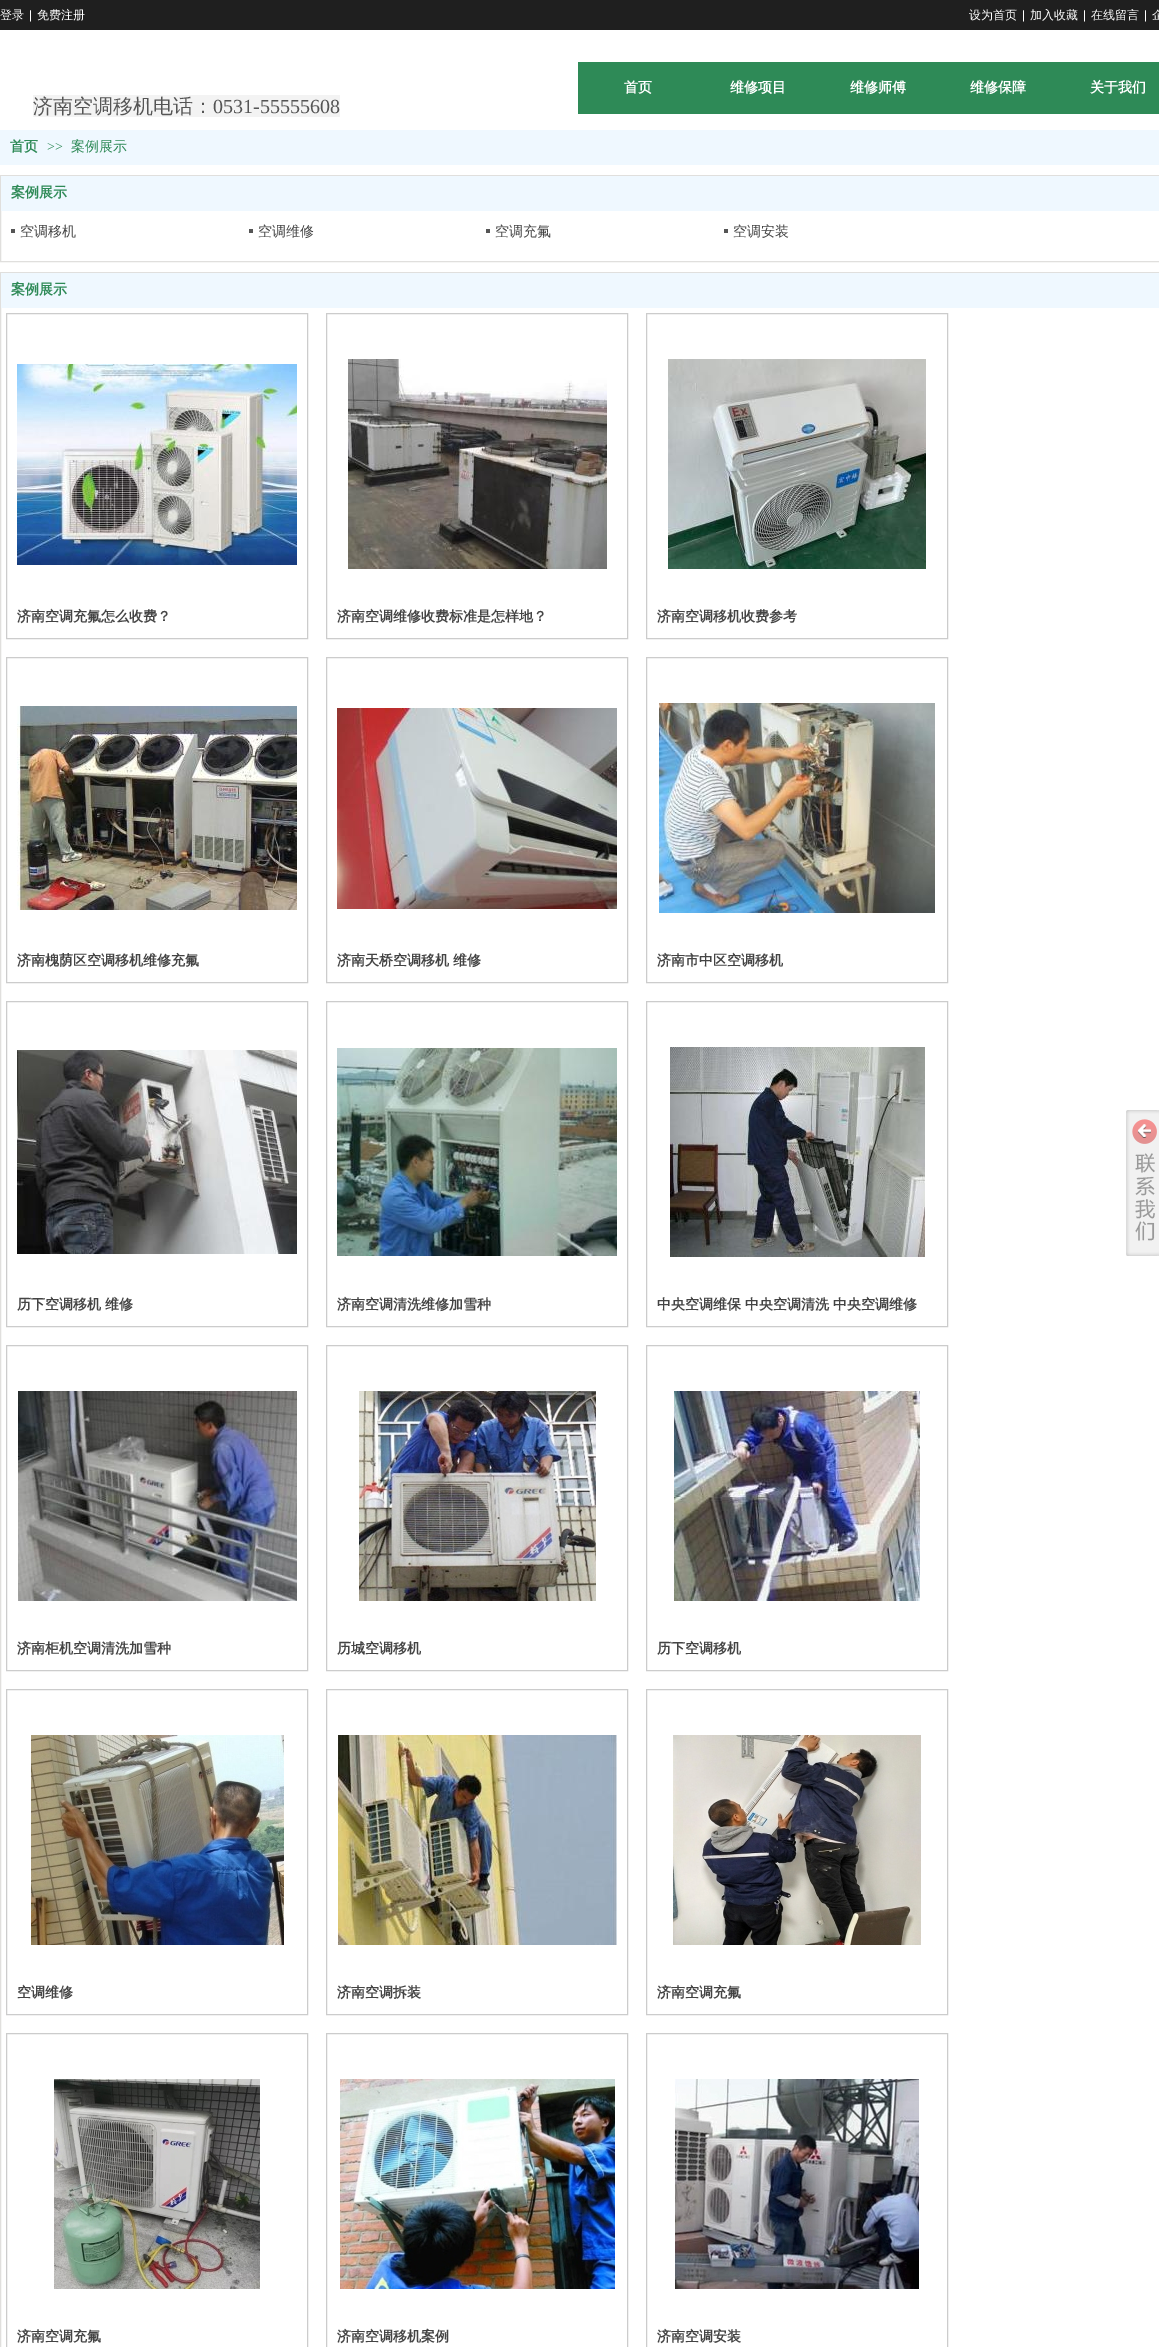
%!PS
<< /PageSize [1159 2347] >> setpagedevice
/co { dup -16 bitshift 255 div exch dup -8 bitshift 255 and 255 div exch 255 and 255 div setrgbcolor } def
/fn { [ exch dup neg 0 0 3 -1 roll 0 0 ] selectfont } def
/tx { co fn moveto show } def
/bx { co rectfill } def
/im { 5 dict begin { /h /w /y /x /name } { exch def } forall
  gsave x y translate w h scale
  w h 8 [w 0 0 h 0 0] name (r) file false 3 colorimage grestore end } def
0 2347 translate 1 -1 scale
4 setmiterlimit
0 0 1159 2347 16#FFFFFF bx
0 0 1159 30 16#1F1F1F bx
578 62 581 52 16#2E8A57 bx
33 95 307 22 16#F3F3F3 bx
0 130 1159 35 16#EFF8FF bx
16#E0DFDD co
.5 175.5 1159 86 rectstroke
1 176 1158 35 16#EFF8FF bx
11 229 4 4 16#555555 bx
249 229 4 4 16#555555 bx
486 229 4 4 16#555555 bx
724 229 4 4 16#555555 bx
16#E0DFDD co
.5 272.5 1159 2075 rectstroke
1 273 1158 35 16#EFF8FF bx
16#CCCCCC co
6.5 313.5 301 325 rectstroke
(media/1.raw) 17 364 280 201 im
326.5 313.5 301 325 rectstroke
(media/2.raw) 348 359 259 210 im
646.5 313.5 301 325 rectstroke
(media/3.raw) 668 359 258 210 im
6.5 657.5 301 325 rectstroke
(media/4.raw) 17 706 280 204 im
326.5 657.5 301 325 rectstroke
(media/5.raw) 337 708 280 201 im
646.5 657.5 301 325 rectstroke
(media/6.raw) 659 703 276 210 im
6.5 1001.5 301 325 rectstroke
(media/7.raw) 17 1050 280 204 im
326.5 1001.5 301 325 rectstroke
(media/8.raw) 337 1048 280 208 im
646.5 1001.5 301 325 rectstroke
(media/9.raw) 670 1047 255 210 im
6.5 1345.5 301 325 rectstroke
(media/10.raw) 18 1391 279 210 im
326.5 1345.5 301 325 rectstroke
(media/11.raw) 359 1391 237 210 im
646.5 1345.5 301 325 rectstroke
(media/12.raw) 674 1391 246 210 im
6.5 1689.5 301 325 rectstroke
(media/13.raw) 31 1735 253 210 im
326.5 1689.5 301 325 rectstroke
(media/14.raw) 338 1735 279 210 im
646.5 1689.5 301 325 rectstroke
(media/15.raw) 673 1735 248 210 im
6.5 2033.5 301 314 rectstroke
(media/16.raw) 54 2079 206 210 im
326.5 2033.5 301 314 rectstroke
(media/17.raw) 340 2079 275 210 im
646.5 2033.5 301 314 rectstroke
(media/18.raw) 675 2079 244 210 im
(media/19.raw) 1126 1110 33 146 im
(登录) 0 19 /WenQuanYiZenHei-Medium 12 16#FFFFFF tx
(|) 29 19 /LiberationSans-Regular 12 16#FFFFFF tx
(免费注册) 37 19 /WenQuanYiZenHei-Medium 12 16#FFFFFF tx
(设为首页) 969 19 /WenQuanYiZenHei-Medium 12 16#FFFFFF tx
(|) 1022 19 /LiberationSans-Regular 12 16#FFFFFF tx
(加入收藏) 1030 19 /WenQuanYiZenHei-Medium 12 16#FFFFFF tx
(|) 1083 19 /LiberationSans-Regular 12 16#FFFFFF tx
(在线留言) 1091 19 /WenQuanYiZenHei-Medium 12 16#FFFFFF tx
(|) 1144 19 /LiberationSans-Regular 12 16#FFFFFF tx
(企) 1152 19 /WenQuanYiZenHei-Medium 12 16#FFFFFF tx
(首页) 624 92 /WenQuanYiZenHei-Bold 14 16#FFFFFF tx
(维修项目) 730 92 /WenQuanYiZenHei-Bold 14 16#FFFFFF tx
(维修师傅) 850 92 /WenQuanYiZenHei-Bold 14 16#FFFFFF tx
(维修保障) 970 92 /WenQuanYiZenHei-Bold 14 16#FFFFFF tx
(关于我们) 1090 92 /WenQuanYiZenHei-Bold 14 16#FFFFFF tx
(济南空调移机电话：) 33 113 /WenQuanYiZenHei-Medium 20 16#555555 tx
(0531-55555608) 213 113 /LiberationSerif-Regular 20 16#555555 tx
(首页) 10 151 /WenQuanYiZenHei-Bold 14 16#2E8A57 tx
(>>) 47 151 /LiberationSerif-Regular 14 16#2E8A57 tx
(案例展示) 71 151 /WenQuanYiZenHei-Medium 14 16#2E8A57 tx
(案例展示) 11 197 /WenQuanYiZenHei-Bold 14 16#2E8A57 tx
(空调移机) 20 236 /WenQuanYiZenHei-Medium 14 16#444444 tx
(空调维修) 258 236 /WenQuanYiZenHei-Medium 14 16#444444 tx
(空调充氟) 495 236 /WenQuanYiZenHei-Medium 14 16#444444 tx
(空调安装) 733 236 /WenQuanYiZenHei-Medium 14 16#444444 tx
(案例展示) 11 294 /WenQuanYiZenHei-Bold 14 16#2E8A57 tx
(济南空调充氟怎么收费？) 17 621 /WenQuanYiZenHei-Bold 14 16#444444 tx
(济南空调维修收费标准是怎样地？) 337 621 /WenQuanYiZenHei-Bold 14 16#444444 tx
(济南空调移机收费参考) 657 621 /WenQuanYiZenHei-Bold 14 16#444444 tx
(济南槐荫区空调移机维修充氟) 17 965 /WenQuanYiZenHei-Bold 14 16#444444 tx
(济南天桥空调移机 维修) 337 965 /WenQuanYiZenHei-Bold 14 16#444444 tx
(济南市中区空调移机) 657 965 /WenQuanYiZenHei-Bold 14 16#444444 tx
(历下空调移机 维修) 17 1309 /WenQuanYiZenHei-Bold 14 16#444444 tx
(济南空调清洗维修加雪种) 337 1309 /WenQuanYiZenHei-Bold 14 16#444444 tx
(中央空调维保 中央空调清洗 中央空调维修) 657 1309 /WenQuanYiZenHei-Bold 14 16#444444 tx
(济南柜机空调清洗加雪种) 17 1653 /WenQuanYiZenHei-Bold 14 16#444444 tx
(历城空调移机) 337 1653 /WenQuanYiZenHei-Bold 14 16#444444 tx
(历下空调移机) 657 1653 /WenQuanYiZenHei-Bold 14 16#444444 tx
(空调维修) 17 1997 /WenQuanYiZenHei-Bold 14 16#444444 tx
(济南空调拆装) 337 1997 /WenQuanYiZenHei-Bold 14 16#444444 tx
(济南空调充氟) 657 1997 /WenQuanYiZenHei-Bold 14 16#444444 tx
(济南空调充氟) 17 2341 /WenQuanYiZenHei-Bold 14 16#444444 tx
(济南空调移机案例) 337 2341 /WenQuanYiZenHei-Bold 14 16#444444 tx
(济南空调安装) 657 2341 /WenQuanYiZenHei-Bold 14 16#444444 tx
showpage
